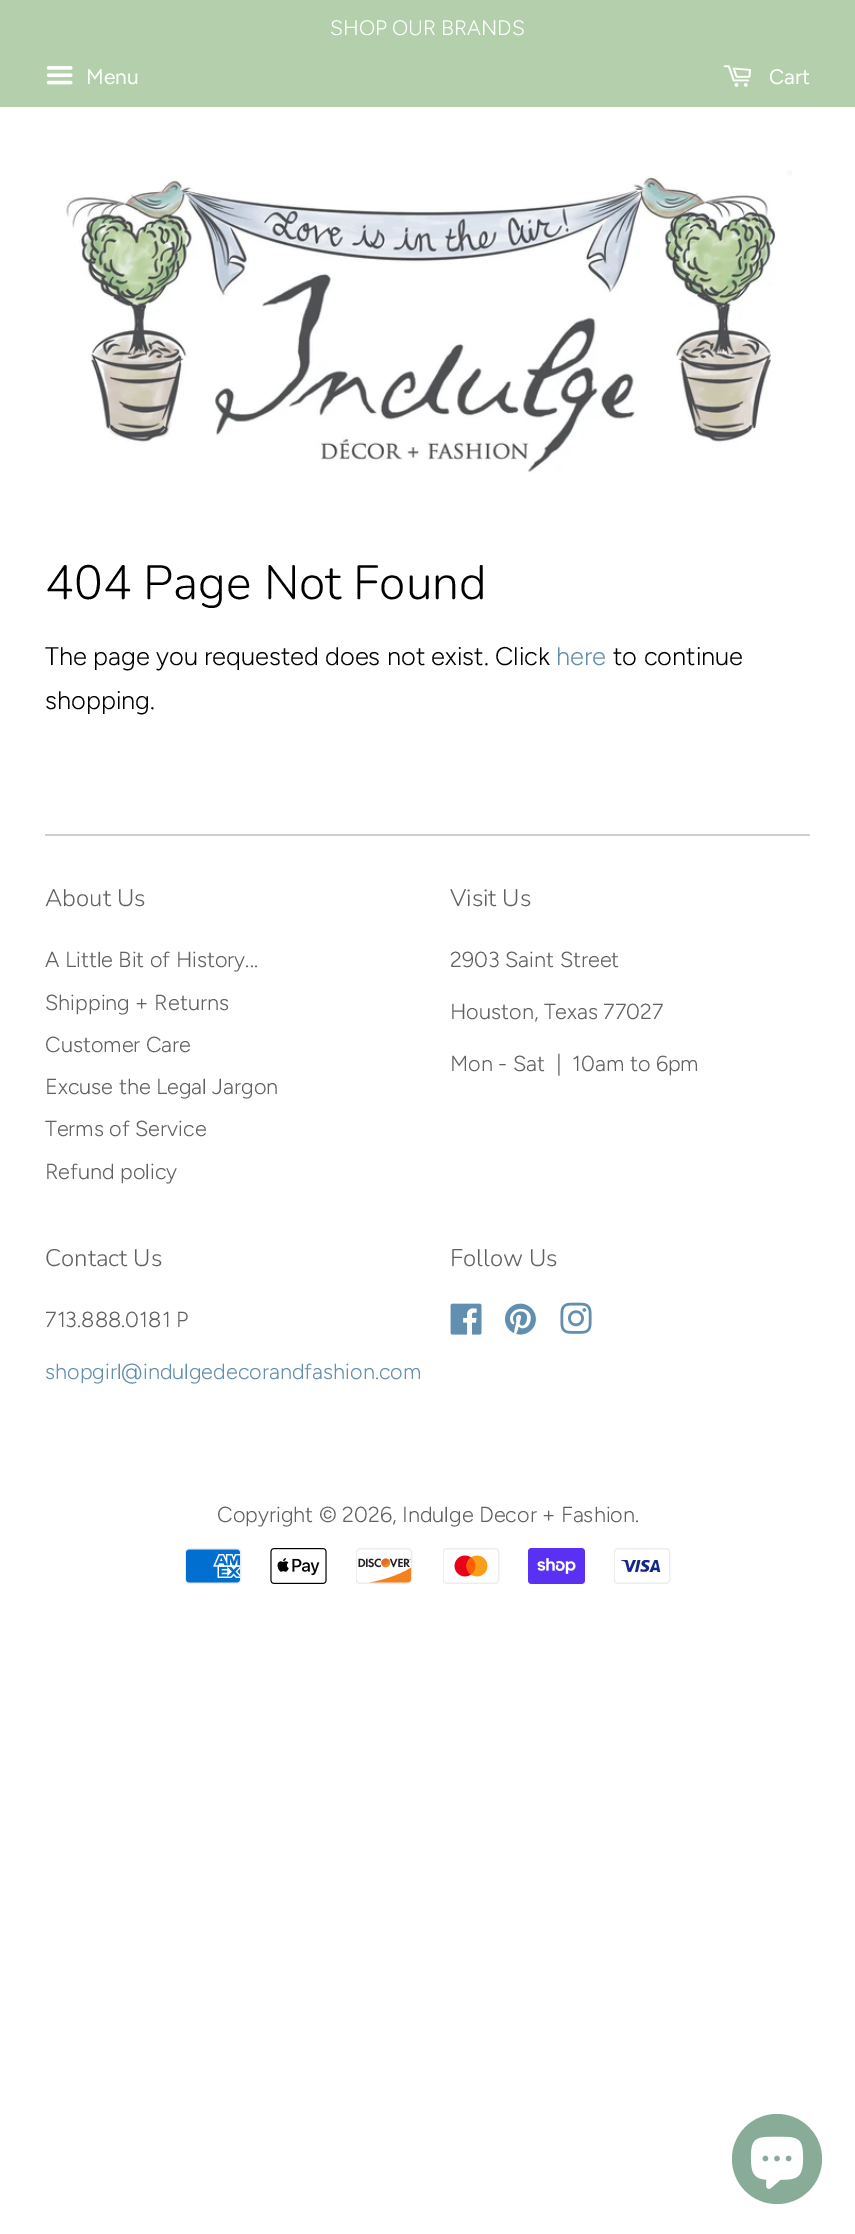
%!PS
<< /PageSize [855 2234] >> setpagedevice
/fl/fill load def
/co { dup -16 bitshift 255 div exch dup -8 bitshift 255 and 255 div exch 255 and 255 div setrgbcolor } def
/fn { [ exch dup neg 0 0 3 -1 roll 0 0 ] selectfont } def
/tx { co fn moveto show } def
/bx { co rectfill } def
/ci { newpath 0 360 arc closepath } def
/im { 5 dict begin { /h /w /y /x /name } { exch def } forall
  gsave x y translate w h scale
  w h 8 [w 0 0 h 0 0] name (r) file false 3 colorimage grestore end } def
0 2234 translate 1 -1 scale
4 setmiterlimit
0 0 855 2234 16#FFFFFF bx
0 0 855 107 16#B4CFAB bx
(media/1.raw) 46 66 27 19 im
(media/2.raw) 723 65 28 22 im
(media/3.raw) 66 170 726 303 im
45 834 765 2 16#CBD0D5 bx
(media/4.raw) 450 1303 32 32 im
(media/5.raw) 505 1303 31 32 im
(media/6.raw) 560 1302 32 32 im
(media/7.raw) 185 1548 57 36 im
(media/8.raw) 270 1548 57 36 im
(media/9.raw) 356 1548 57 36 im
(media/10.raw) 443 1548 57 36 im
(media/11.raw) 528 1548 57 36 im
(media/12.raw) 614 1548 57 36 im
16#88AC97 co
777 2159 45 ci fl
(media/13.raw) 750 2136 54 53 im
(SHOP OUR BRANDS) 330 35 /Figtree-Light 21 16#FFFFFF tx
(Menu) 86 84 /Figtree-Regular 21 16#FFFFFF tx
(Cart) 769 84 /Figtree-Regular 21 16#FFFFFF tx
(404 Page Not Found) 45 599 /Nunito-Light 48 16#000000 tx
(The page you requested does not exist. Click) 45 665 /Figtree-Light 25.5 16#000000 tx
(here) 556 665 /Figtree-Light 25.5 16#628FB0 tx
(to continue) 613 665 /Figtree-Light 25.5 16#000000 tx
(shopping.) 45 709 /Figtree-Light 25.5 16#000000 tx
(About Us) 45 906 /Nunito-Light 24 16#636060 tx
(A Little Bit of History...) 45 967 /Figtree-Light 21.7 16#636060 tx
(Shipping + Returns) 45 1010 /Figtree-Light 21.7 16#636060 tx
(Customer Care) 45 1052 /Figtree-Light 21.7 16#636060 tx
(Excuse the Legal Jargon) 45 1094 /Figtree-Light 21.7 16#636060 tx
(Terms of Service) 45 1136 /Figtree-Light 21.7 16#636060 tx
(Refund policy) 45 1179 /Figtree-Light 21.7 16#636060 tx
(Visit Us) 450 906 /Nunito-Light 24 16#636060 tx
(2903 Saint Street) 450 967 /Figtree-Light 21.7 16#636060 tx
(Houston, Texas 77027) 450 1019 /Figtree-Light 21.7 16#636060 tx
(Mon - Sat  |  10am to 6pm) 450 1071 /Figtree-Light 21.7 16#636060 tx
(Contact Us) 45 1266 /Nunito-Light 24 16#636060 tx
(713.888.0181 P) 45 1327 /Figtree-Light 21.7 16#636060 tx
(shopgirl@indulgedecorandfashion.com) 45 1379 /Figtree-Light 21.7 16#628FB0 tx
(Follow Us) 450 1266 /Nunito-Light 24 16#636060 tx
(Copyright © 2026, Indulge Decor + Fashion.) 217 1522 /Figtree-Light 21.7 16#636060 tx
showpage
